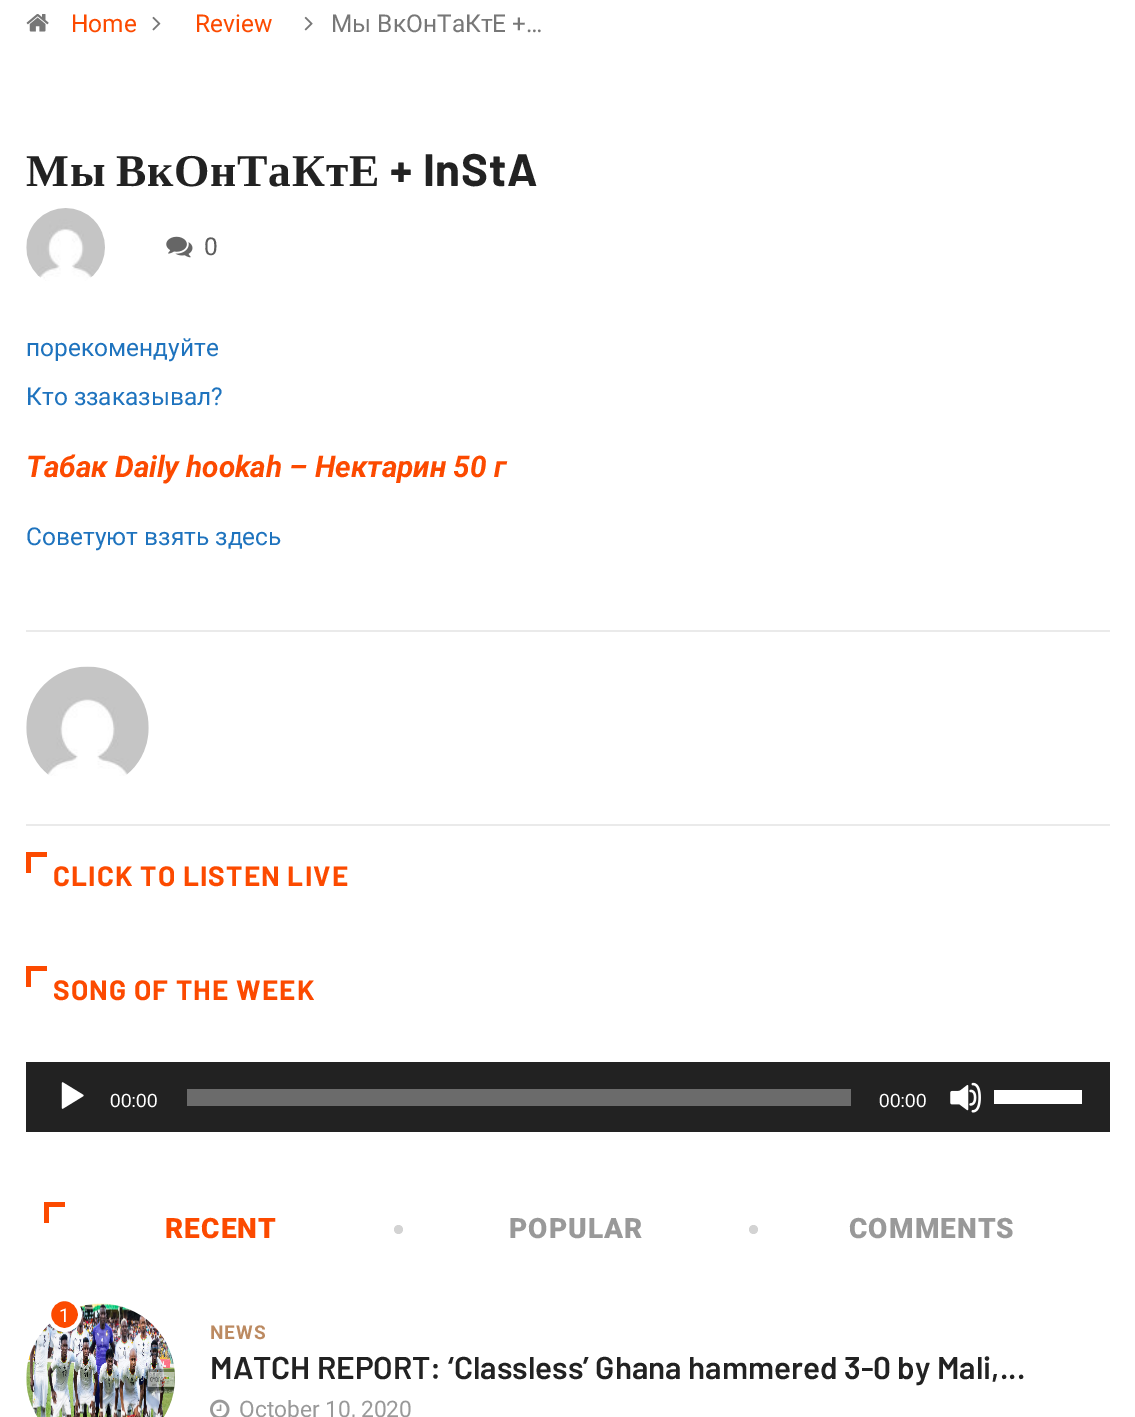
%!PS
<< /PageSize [1135 1417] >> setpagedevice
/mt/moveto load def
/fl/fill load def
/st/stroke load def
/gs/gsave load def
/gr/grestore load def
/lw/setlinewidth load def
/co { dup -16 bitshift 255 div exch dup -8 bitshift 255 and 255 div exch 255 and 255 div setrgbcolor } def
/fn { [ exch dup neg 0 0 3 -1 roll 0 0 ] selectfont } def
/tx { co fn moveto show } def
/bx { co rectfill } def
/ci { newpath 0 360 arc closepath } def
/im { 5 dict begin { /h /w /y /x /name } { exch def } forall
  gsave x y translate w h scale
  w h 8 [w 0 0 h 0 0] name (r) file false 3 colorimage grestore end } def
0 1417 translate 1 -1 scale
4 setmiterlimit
0 0 1135 1417 16#FFFFFF bx
(media/1.raw) 26 14 23 18 im
(media/2.raw) 152 16 9 15 im
(media/3.raw) 304 16 9 15 im
(media/4.raw) 26 208 79 73 im
(media/5.raw) 166 236 27 22 im
26 630 1084 2 16#EAEAEA bx
26 824 1084 2 16#EAEAEA bx
(media/6.raw) 26 666 123 110 im
26 852 5 21 16#FC4A00 bx
26 852 21 5 16#FC4A00 bx
26 966 5 21 16#FC4A00 bx
26 966 21 5 16#FC4A00 bx
26 1062 1084 70 16#222222 bx
(media/7.raw) 61 1082 23 27 im
187 1089 664 17 16#6B6B6B bx
(media/8.raw) 950 1082 31 31 im
994 1090 88 14 16#FFFFFF bx
44 1202 5 21 16#FC4A00 bx
44 1202 21 5 16#FC4A00 bx
16#D3D3D3 co
398.5 1229.5 4.5 ci fl
753.5 1229.5 4.5 ci fl
(media/9.raw) 26 1303 149 114 im
16#FC4A00 co
64.5 1314.5 15.5 ci gs fl gr
16#FFFFFF co
4 lw
st
(media/10.raw) 210 1399 20 18 im
(Home) 71 32 /Roboto-Regular 24.5 16#FC4A00 tx
(Review) 195 32 /Roboto-Regular 24.5 16#FC4A00 tx
(Мы ВкОнТаКтЕ +…) 331 32 /Roboto-Regular 24.5 16#777777 tx
/LiberationSerif-Bold 45.5 fn
16#222222 co
26 186 mt .75 0 (Мы) ashow
116 186 mt .75 0 (ВкОнТаКтЕ) ashow
/Barlow-Bold 45.5 fn
390 186 mt .75 0 (+ InStA) ashow
(0) 204 255 /Roboto-Regular 24.5 16#5C5C5C tx
(порекомендуйте) 26 356 /Roboto-Regular 24.5 16#1E73BE tx
(Кто ззаказывал?) 26 405 /Roboto-Regular 24.5 16#1E73BE tx
(Табак Daily hookah – Нектарин 50 г) 26 477 /Roboto-BoldItalic 29.75 16#FC4A00 tx
(Советуют взять здесь) 26 545 /Roboto-Regular 24.5 16#1E73BE tx
/Barlow-Bold 28 fn
16#FC4A00 co
53 886 mt 1.1 0 (CLICK TO LISTEN LIVE) ashow
53 1000 mt 1.1 0 (SONG OF THE WEEK) ashow
(00:00) 110 1107 /LiberationSans-Regular 19 16#FFFFFF tx
(00:00) 879 1107 /LiberationSans-Regular 19 16#FFFFFF tx
/Roboto-Black 28 fn
16#FC4A00 co
165 1238 mt 1.1 0 (RECENT) ashow
16#999999 co
509 1238 mt 1.1 0 (POPULAR) ashow
849 1238 mt 1.1 0 (COMMENTS) ashow
(1) 59 1322 /Roboto-Regular 19 16#FFFFFF tx
/Roboto-Bold 19 fn
16#BC8A61 co
210 1339 mt 1 0 (NEWS) ashow
(MATCH REPORT: ‘Classless’ Ghana hammered 3-0 by Mali,...) 210 1379 /Barlow-SemiBold 31.5 16#222222 tx
(October 10, 2020) 239 1417 /Roboto-Regular 22.75 16#999999 tx
showpage
